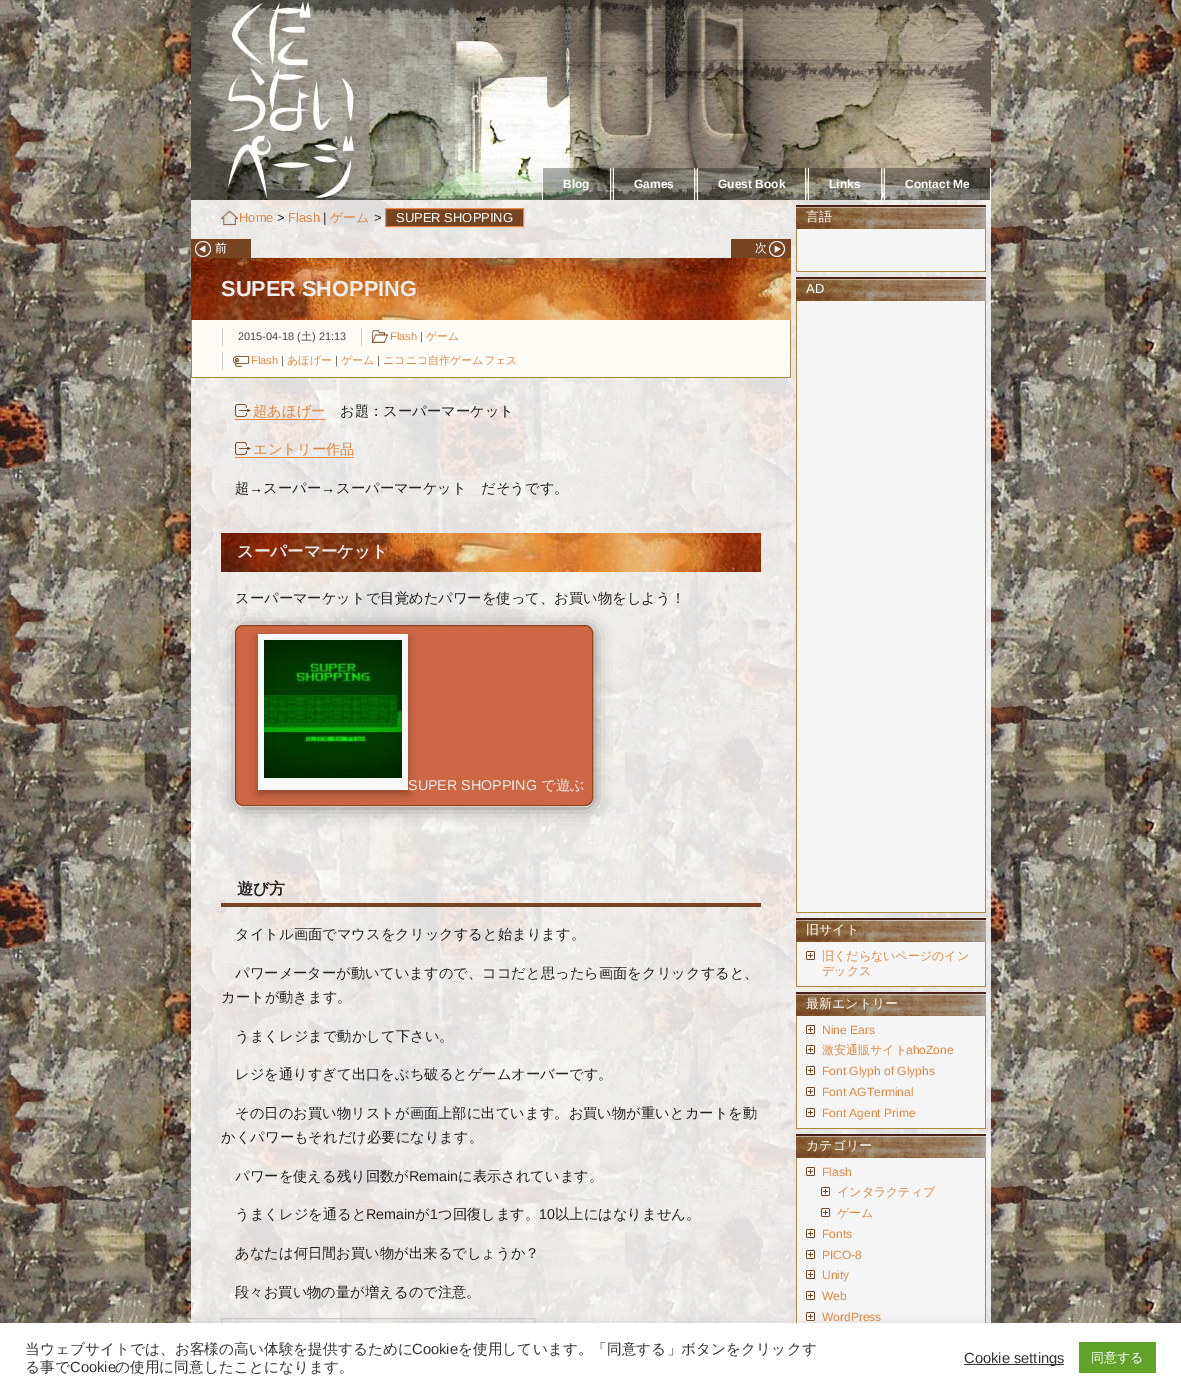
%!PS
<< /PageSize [1181 1392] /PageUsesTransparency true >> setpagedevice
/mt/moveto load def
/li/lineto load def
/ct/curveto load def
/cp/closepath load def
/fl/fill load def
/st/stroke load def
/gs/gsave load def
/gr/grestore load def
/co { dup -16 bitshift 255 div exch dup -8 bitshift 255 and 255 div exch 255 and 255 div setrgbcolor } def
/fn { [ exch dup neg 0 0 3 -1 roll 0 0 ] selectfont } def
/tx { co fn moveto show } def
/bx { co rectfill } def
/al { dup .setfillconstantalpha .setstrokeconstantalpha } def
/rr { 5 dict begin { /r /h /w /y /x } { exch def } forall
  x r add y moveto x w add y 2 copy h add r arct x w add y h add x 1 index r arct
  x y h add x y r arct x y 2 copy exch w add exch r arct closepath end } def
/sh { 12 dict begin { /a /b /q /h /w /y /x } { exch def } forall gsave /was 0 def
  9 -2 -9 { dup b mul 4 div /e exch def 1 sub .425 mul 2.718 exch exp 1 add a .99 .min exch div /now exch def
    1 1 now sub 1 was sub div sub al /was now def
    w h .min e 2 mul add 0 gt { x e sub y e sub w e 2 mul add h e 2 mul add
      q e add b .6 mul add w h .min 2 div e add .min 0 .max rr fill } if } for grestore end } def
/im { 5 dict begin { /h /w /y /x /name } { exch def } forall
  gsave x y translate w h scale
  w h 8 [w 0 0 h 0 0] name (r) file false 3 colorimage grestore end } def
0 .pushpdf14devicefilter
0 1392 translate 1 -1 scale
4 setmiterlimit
0 0 1181 1392 16#FFFFFF bx
(media/1.raw) 0 0 1181 1323 im
(media/2.raw) 191 0 800 200 im
0.3 al
543 168 67 32 16#000000 bx
1 al
610 168 1 32 16#F5F5F3 bx
542 168 1 32 16#F5F5F3 bx
0.3 al
614 168 80 32 16#000000 bx
1 al
694 168 1 32 16#F5F5F3 bx
613 168 1 32 16#F5F5F3 bx
0.3 al
698 168 107 32 16#000000 bx
1 al
805 168 1 32 16#F5F5F3 bx
697 168 1 32 16#F5F5F3 bx
0.3 al
809 168 72 32 16#000000 bx
1 al
881 168 1 32 16#F5F5F3 bx
808 168 1 32 16#F5F5F3 bx
0.3 al
885 168 105 32 16#000000 bx
1 al
990 168 1 32 16#F5F5F3 bx
884 168 1 32 16#F5F5F3 bx
0.85 al
191 200 800 1123 16#FFFFFF bx
1 al
(media/3.raw) 221 210 17 15 im
16#774422 co
385.5 208.5 mt 523.5 208.5 li 523.5 226.5 li 385.5 226.5 li cp gs fl gr
16#EE8844 co
st
191 239 60 19 16#774422 bx
(media/4.raw) 195 241 16 16 im
731 239 60 19 16#774422 bx
(media/5.raw) 769 241 16 16 im
(media/6.raw) 191 258 600 62 im
192 320 598 57 16#FFFCF8 bx
790 320 1 58 16#AA8844 bx
191 377 600 1 16#AA8844 bx
191 320 1 58 16#AA8844 bx
222 328 1 18 16#CCCCCC bx
(media/7.raw) 372 330 16 13 im
361 328 1 18 16#CCCCCC bx
(media/8.raw) 233 356 16 11 im
222 352 1 18 16#CCCCCC bx
(media/9.raw) 235 403 16 14 im
235 419 90 1 16#EE8844 bx
(media/10.raw) 235 441 16 14 im
235 457 119 1 16#EE8844 bx
(media/11.raw) 221 533 540 39 im
16#000000 co
237 627 358 181 8 8 .4 sh
16#FFFFFF co
235 798 mt 235 799 li 235 803 239 807 243 807 ct 585 807 li 589 807 593 803 593 799 ct 593 798 li 593 802 589 806 585 806 ct 243 806 li 239 806 235 802 235 798 ct cp fl
16#CC6644 co
235.5 625.5 357 180 7.5 rr gs fl gr
16#884422 co
st
16#000000 co
258 638 150 156 0 4 .3 sh
258 634 150 156 16#F8F8F8 bx
(media/12.raw) 264 640 138 138 im
221 903 540 4 16#774422 bx
16#CCCCCC co
221.5 1318.5 313 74 rectstroke
(media/13.raw) 796 205 190 24 im
797 229 188 42 16#F5F5F5 bx
985 229 1 43 16#AA8844 bx
796 271 190 1 16#AA8844 bx
796 229 1 43 16#AA8844 bx
(media/13.raw) 796 277 190 24 im
797 301 188 611 16#F5F5F5 bx
985 301 1 612 16#AA8844 bx
796 912 190 1 16#AA8844 bx
796 301 1 612 16#AA8844 bx
(media/13.raw) 796 918 190 24 im
797 942 188 44 16#F5F5F5 bx
985 942 1 45 16#AA8844 bx
796 986 190 1 16#AA8844 bx
796 942 1 45 16#AA8844 bx
(media/14.raw) 806 951 9 9 im
(media/13.raw) 796 992 190 24 im
797 1016 188 112 16#F5F5F5 bx
985 1016 1 113 16#AA8844 bx
796 1128 190 1 16#AA8844 bx
796 1016 1 113 16#AA8844 bx
(media/14.raw) 806 1025 9 9 im
(media/14.raw) 806 1045 9 9 im
(media/14.raw) 806 1066 9 9 im
(media/14.raw) 806 1087 9 9 im
(media/14.raw) 806 1108 9 9 im
(media/13.raw) 796 1134 190 24 im
797 1158 188 165 16#F5F5F5 bx
985 1158 1 165 16#AA8844 bx
796 1158 1 165 16#AA8844 bx
(media/14.raw) 806 1167 9 9 im
(media/14.raw) 821 1187 9 9 im
(media/14.raw) 821 1208 9 9 im
(media/14.raw) 806 1229 9 9 im
(media/14.raw) 806 1250 9 9 im
(media/14.raw) 806 1270 9 9 im
(media/14.raw) 806 1291 9 9 im
(media/14.raw) 806 1312 9 9 im
16#ACABAB co
0 1322 1181 69 0 5 .3 sh
0 1323 1181 69 16#FFFFFF bx
964 1364 100 1 16#333333 bx
1079 1342 77 31 16#61A229 bx
(Blog) 563 188 /LiberationSans-Bold 12 16#FFFFFF tx
(Games) 634 188 /LiberationSans-Bold 12 16#FFFFFF tx
(Guest Book) 718 188 /LiberationSans-Bold 12 16#FFFFFF tx
(Links) 829 188 /LiberationSans-Bold 12 16#FFFFFF tx
(Contact Me) 905 188 /LiberationSans-Bold 12 16#FFFFFF tx
(Home) 239 222 /LiberationSans-Regular 13 16#DD8844 tx
(>) 277 222 /LiberationSans-Regular 13 16#222222 tx
(Flash) 288 222 /LiberationSans-Regular 13 16#DD8844 tx
(|) 323 222 /LiberationSans-Regular 13 16#222222 tx
(ゲーム) 330 222 /WenQuanYiZenHei-Medium 13 16#DD8844 tx
(>) 374 222 /LiberationSans-Regular 13 16#222222 tx
(SUPER SHOPPING) 396 222 /LiberationSans-Regular 13 16#FFFFFF tx
(前) 215 252 /WenQuanYiZenHei-Medium 12 16#FFFFFF tx
(次) 755 252 /WenQuanYiZenHei-Medium 12 16#FFFFFF tx
(SUPER SHOPPING) 221 296 /LiberationSans-Bold 21.75 16#EEEEEE tx
(2015-04-18 \() 238 340 /LiberationSans-Regular 11 16#444444 tx
(土) 301 340 /WenQuanYiZenHei-Medium 11 16#444444 tx
(\) 21:13) 312 340 /LiberationSans-Regular 11 16#444444 tx
(Flash) 390 340 /LiberationSans-Regular 11 16#DD8844 tx
(|) 420 340 /LiberationSans-Regular 11 16#444444 tx
(ゲーム) 426 340 /WenQuanYiZenHei-Medium 11 16#DD8844 tx
(Flash) 251 364 /LiberationSans-Regular 11 16#DD8844 tx
(|) 281 364 /LiberationSans-Regular 11 16#444444 tx
(あほげー) 287 364 /WenQuanYiZenHei-Medium 11 16#DD8844 tx
(|) 335 364 /LiberationSans-Regular 11 16#444444 tx
(ゲーム) 341 364 /WenQuanYiZenHei-Medium 11 16#DD8844 tx
(|) 377 364 /LiberationSans-Regular 11 16#444444 tx
(ニコニコ自作ゲームフェス) 383 364 /WenQuanYiZenHei-Medium 11 16#DD8844 tx
(超あほげー) 253 416 /WenQuanYiZenHei-Medium 14.3 16#DD8844 tx
(お題：スーパーマーケット) 340 416 /WenQuanYiZenHei-Medium 14.3 16#222222 tx
(エントリー作品) 253 454 /WenQuanYiZenHei-Medium 14.3 16#DD8844 tx
(超) 235 493 /WenQuanYiZenHei-Medium 14.3 16#222222 tx
(→) 249 493 /LiberationSans-Regular 14.3 16#222222 tx
(スーパー) 263 493 /WenQuanYiZenHei-Medium 14.3 16#222222 tx
(→) 321 493 /LiberationSans-Regular 14.3 16#222222 tx
(スーパーマーケット　だそうです。) 336 493 /WenQuanYiZenHei-Medium 14.3 16#222222 tx
(スーパーマーケット) 237 557 /WenQuanYiZenHei-Bold 16.5 16#EEEEEE tx
(スーパーマーケットで目覚めたパワーを使って、お買い物をしよう！) 235 603 /WenQuanYiZenHei-Medium 14.3 16#222222 tx
(SUPER SHOPPING) 408 790 /LiberationSans-Regular 14.3 16#EEEEEE tx
(で遊ぶ) 541 790 /WenQuanYiZenHei-Medium 14.3 16#EEEEEE tx
(遊び方) 237 894 /WenQuanYiZenHei-Bold 16 16#222222 tx
(タイトル画面でマウスをクリックすると始まります。) 235 939 /WenQuanYiZenHei-Medium 14.3 16#222222 tx
(パワーメーターが動いていますので、ココだと思ったら画面をクリックすると、) 235 978 /WenQuanYiZenHei-Medium 14.3 16#222222 tx
(カートが動きます。) 221 1002 /WenQuanYiZenHei-Medium 14.3 16#222222 tx
(うまくレジまで動かして下さい。) 235 1041 /WenQuanYiZenHei-Medium 14.3 16#222222 tx
(レジを通りすぎて出口をぶち破るとゲームオーバーです。) 235 1079 /WenQuanYiZenHei-Medium 14.3 16#222222 tx
(その日のお買い物リストが画面上部に出ています。お買い物が重いとカートを動) 235 1118 /WenQuanYiZenHei-Medium 14.3 16#222222 tx
(かくパワーもそれだけ必要になります。) 221 1142 /WenQuanYiZenHei-Medium 14.3 16#222222 tx
(パワーを使える残り回数が) 235 1181 /WenQuanYiZenHei-Medium 14.3 16#222222 tx
(Remain) 409 1181 /LiberationSans-Regular 14.3 16#222222 tx
(に表示されています。) 458 1181 /WenQuanYiZenHei-Medium 14.3 16#222222 tx
(うまくレジを通ると) 235 1219 /WenQuanYiZenHei-Medium 14.3 16#222222 tx
(Remain) 366 1219 /LiberationSans-Regular 14.3 16#222222 tx
(が) 415 1219 /WenQuanYiZenHei-Medium 14.3 16#222222 tx
(1) 430 1219 /LiberationSans-Regular 14.3 16#222222 tx
(つ回復します。) 438 1219 /WenQuanYiZenHei-Medium 14.3 16#222222 tx
(10) 539 1219 /LiberationSans-Regular 14.3 16#222222 tx
(以上にはなりません。) 555 1219 /WenQuanYiZenHei-Medium 14.3 16#222222 tx
(あなたは何日間お買い物が出来るでしょうか？) 235 1258 /WenQuanYiZenHei-Medium 14.3 16#222222 tx
(段々お買い物の量が増えるので注意。) 235 1297 /WenQuanYiZenHei-Medium 14.3 16#222222 tx
(言語) 806 221 /WenQuanYiZenHei-Medium 13 16#FFFFFF tx
(AD) 806 293 /LiberationSans-Regular 13 16#FFFFFF tx
(旧サイト) 806 934 /WenQuanYiZenHei-Medium 13 16#FFFFFF tx
(旧くだらないページのイン) 822 960 /WenQuanYiZenHei-Medium 12 16#DD8844 tx
(デックス) 822 975 /WenQuanYiZenHei-Medium 12 16#DD8844 tx
(最新エントリー) 806 1008 /WenQuanYiZenHei-Medium 13 16#FFFFFF tx
(Nine Ears) 822 1034 /LiberationSans-Regular 12 16#DD8844 tx
(激安通販サイト) 822 1054 /WenQuanYiZenHei-Medium 12 16#DD8844 tx
(ahoZone) 906 1054 /LiberationSans-Regular 12 16#DD8844 tx
(Font Glyph of Glyphs) 822 1075 /LiberationSans-Regular 12 16#DD8844 tx
(Font AGTerminal) 822 1096 /LiberationSans-Regular 12 16#DD8844 tx
(Font Agent Prime) 822 1117 /LiberationSans-Regular 12 16#DD8844 tx
(カテゴリー) 806 1150 /WenQuanYiZenHei-Medium 13 16#FFFFFF tx
(Flash) 822 1176 /LiberationSans-Regular 12 16#DD8844 tx
(インタラクティブ) 837 1196 /WenQuanYiZenHei-Medium 12 16#DD8844 tx
(ゲーム) 837 1217 /WenQuanYiZenHei-Medium 12 16#DD8844 tx
(Fonts) 822 1238 /LiberationSans-Regular 12 16#DD8844 tx
(PICO-8) 822 1259 /LiberationSans-Regular 12 16#DD8844 tx
(Unity) 822 1279 /LiberationSans-Regular 12 16#DD8844 tx
(Web) 822 1300 /LiberationSans-Regular 12 16#DD8844 tx
(WordPress) 822 1321 /LiberationSans-Regular 12 16#DD8844 tx
(当ウェブサイトでは、お客様の高い体験を提供するために) 25 1354 /WenQuanYiZenHei-Medium 14.7 16#333333 tx
(Cookie) 412 1354 /LiberationSans-Regular 14.7 16#333333 tx
(を使用しています。「同意する」ボタンをクリックす) 458 1354 /WenQuanYiZenHei-Medium 14.7 16#333333 tx
(る事で) 25 1372 /WenQuanYiZenHei-Medium 14.7 16#333333 tx
(Cookie) 70 1372 /LiberationSans-Regular 14.7 16#333333 tx
(の使用に同意したことになります。) 115 1372 /WenQuanYiZenHei-Medium 14.7 16#333333 tx
(Cookie settings) 964 1363 /LiberationSans-Regular 14.7 16#333333 tx
(同意する) 1091 1362 /WenQuanYiZenHei-Medium 13 16#FFFFFF tx
.poppdf14devicefilter showpage
